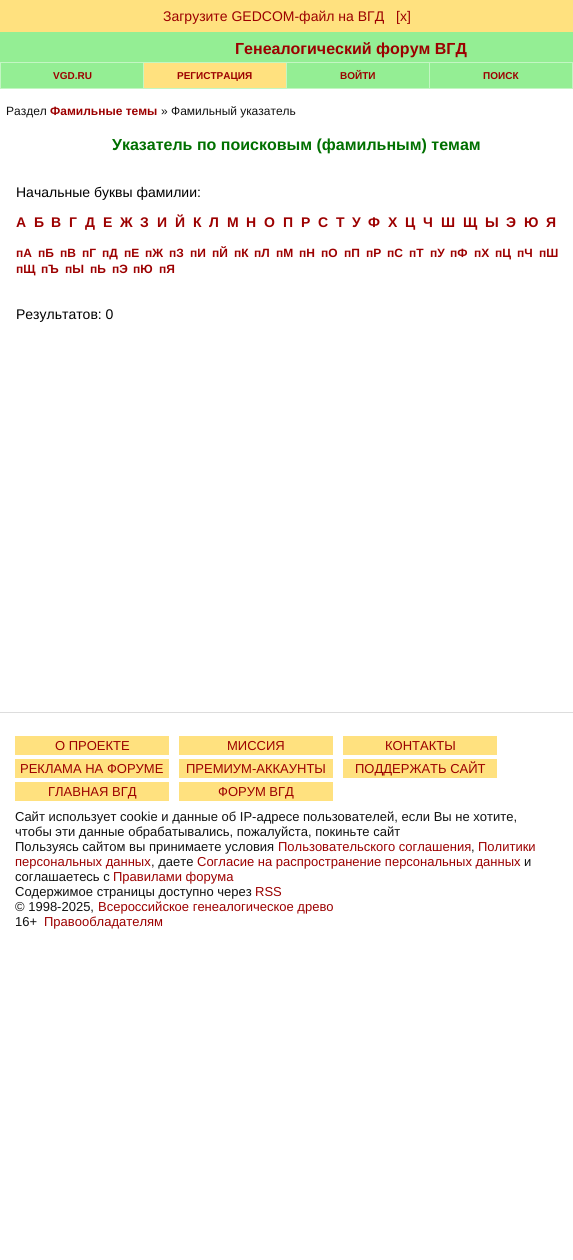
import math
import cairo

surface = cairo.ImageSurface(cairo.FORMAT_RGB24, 573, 1260)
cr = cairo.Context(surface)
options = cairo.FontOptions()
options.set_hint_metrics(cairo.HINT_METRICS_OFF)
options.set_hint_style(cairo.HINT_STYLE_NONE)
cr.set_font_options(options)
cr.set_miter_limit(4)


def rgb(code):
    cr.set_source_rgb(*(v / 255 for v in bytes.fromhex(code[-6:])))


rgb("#ffffff")
cr.paint()
for x, y, w, h, color in [
    (0, 0, 573, 32, "#ffe17f"),
    (0, 32, 573, 30, "#94ee94"),
    (0, 62, 573, 27, "#c3f6c3"),
    (1, 63, 142, 25, "#94ee94"),
    (144, 63, 142, 25, "#ffe17f"),
    (287, 63, 142, 25, "#94ee94"),
    (430, 63, 142, 25, "#94ee94"),
    (0, 712, 573, 1, "#dddddd"),
    (15, 736, 154, 19, "#ffe17f"),
    (179, 736, 154, 19, "#ffe17f"),
    (343, 736, 154, 19, "#ffe17f"),
    (15, 759, 154, 19, "#ffe17f"),
    (179, 759, 154, 19, "#ffe17f"),
    (343, 759, 154, 19, "#ffe17f"),
    (15, 782, 154, 19, "#ffe17f"),
    (179, 782, 154, 19, "#ffe17f"),
]:
    rgb(color)
    cr.rectangle(x, y, w, h)
    cr.fill()
cr.select_font_face("Liberation Sans")
cr.set_font_size(14)
rgb("#9c0000")
cr.move_to(163, 21)
cr.show_text("Загрузите GEDCOM-файл на ВГД")
cr.move_to(396, 21)
cr.show_text("[х]")
cr.select_font_face("Liberation Sans", cairo.FONT_SLANT_NORMAL, cairo.FONT_WEIGHT_BOLD)
cr.set_font_size(16)
cr.move_to(235, 54)
cr.show_text("Генеалогический форум ВГД")
cr.set_font_size(10)
for x, y, s in [
    (53, 79, "VGD.RU"),
    (177, 79, "РЕГИСТРАЦИЯ"),
    (340, 79, "ВОЙТИ"),
    (483, 79, "ПОИСК"),
]:
    cr.move_to(x, y)
    cr.show_text(s)
cr.select_font_face("Liberation Sans")
cr.set_font_size(12)
rgb("#111111")
cr.move_to(6, 115)
cr.show_text("Раздел")
cr.select_font_face("Liberation Sans", cairo.FONT_SLANT_NORMAL, cairo.FONT_WEIGHT_BOLD)
rgb("#9c0000")
cr.move_to(50, 115)
cr.show_text("Фамильные темы")
cr.select_font_face("Liberation Sans")
rgb("#111111")
cr.move_to(161, 115)
cr.show_text("» Фамильный указатель")
cr.select_font_face("Liberation Sans", cairo.FONT_SLANT_NORMAL, cairo.FONT_WEIGHT_BOLD)
cr.set_font_size(16)
rgb("#007000")
cr.move_to(112, 150)
cr.show_text("Указатель по поисковым (фамильным) темам")
cr.select_font_face("Liberation Sans")
cr.set_font_size(14)
rgb("#000000")
cr.move_to(16, 197)
cr.show_text("Начальные буквы фамилии:")
cr.select_font_face("Liberation Sans", cairo.FONT_SLANT_NORMAL, cairo.FONT_WEIGHT_BOLD)
rgb("#9c0000")
for x, y, s in [
    (16, 227, "А"),
    (34, 227, "Б"),
    (51, 227, "В"),
    (69, 227, "Г"),
    (85, 227, "Д"),
    (103, 227, "Е"),
    (120, 227, "Ж"),
    (140, 227, "З"),
    (157, 227, "И"),
    (175, 227, "Й"),
    (193, 227, "К"),
    (209, 227, "Л"),
    (227, 227, "М"),
    (246, 227, "Н"),
    (264, 227, "О"),
    (283, 227, "П"),
    (301, 227, "Р"),
    (318, 227, "С"),
    (336, 227, "Т"),
    (352, 227, "У"),
    (368, 227, "Ф"),
    (388, 227, "Х"),
    (405, 227, "Ц"),
    (423, 227, "Ч"),
    (441, 227, "Ш"),
    (463, 227, "Щ"),
    (485, 227, "Ы"),
    (506, 227, "Э"),
    (524, 227, "Ю"),
    (546, 227, "Я"),
]:
    cr.move_to(x, y)
    cr.show_text(s)
cr.set_font_size(12)
for x, y, s in [
    (16, 257, "пА"),
    (38, 257, "пБ"),
    (60, 257, "пВ"),
    (82, 257, "пГ"),
    (102, 257, "пД"),
    (124, 257, "пЕ"),
    (145, 257, "пЖ"),
    (169, 257, "пЗ"),
    (190, 257, "пИ"),
    (212, 257, "пЙ"),
    (234, 257, "пК"),
    (254, 257, "пЛ"),
    (276, 257, "пМ"),
    (299, 257, "пН"),
    (321, 257, "пО"),
    (344, 257, "пП"),
    (366, 257, "пР"),
    (387, 257, "пС"),
    (409, 257, "пТ"),
    (430, 257, "пУ"),
    (450, 257, "пФ"),
    (474, 257, "пХ"),
    (495, 257, "пЦ"),
    (517, 257, "пЧ"),
    (539, 257, "пШ"),
    (16, 273, "пЩ"),
    (41, 273, "пЪ"),
    (65, 273, "пЫ"),
    (90, 273, "пЬ"),
    (112, 273, "пЭ"),
    (133, 273, "пЮ"),
    (159, 273, "пЯ"),
]:
    cr.move_to(x, y)
    cr.show_text(s)
cr.select_font_face("Liberation Sans")
cr.set_font_size(14)
rgb("#000000")
cr.move_to(16, 319)
cr.show_text("Результатов: 0")
cr.set_font_size(13)
rgb("#9c0000")
for x, y, s in [
    (55, 750, "О ПРОЕКТЕ"),
    (227, 750, "МИССИЯ"),
    (385, 750, "КОНТАКТЫ"),
    (20, 773, "РЕКЛАМА НА ФОРУМЕ"),
    (186, 773, "ПРЕМИУМ-АККАУНТЫ"),
    (355, 773, "ПОДДЕРЖАТЬ САЙТ"),
    (48, 796, "ГЛАВНАЯ ВГД"),
    (218, 796, "ФОРУМ ВГД"),
]:
    cr.move_to(x, y)
    cr.show_text(s)
rgb("#111111")
for x, y, s in [
    (15, 821, "Сайт использует cookie и данные об IP-адресе пользователей, если Вы не хотите,"),
    (15, 836, "чтобы эти данные обрабатывались, пожалуйста, покиньте сайт"),
    (15, 851, "Пользуясь сайтом вы принимаете условия"),
]:
    cr.move_to(x, y)
    cr.show_text(s)
rgb("#9c0000")
cr.move_to(278, 851)
cr.show_text("Пользовательского соглашения")
rgb("#111111")
cr.move_to(471, 851)
cr.show_text(",")
rgb("#9c0000")
cr.move_to(478, 851)
cr.show_text("Политики")
cr.move_to(15, 866)
cr.show_text("персональных данных")
rgb("#111111")
cr.move_to(151, 866)
cr.show_text(", даете")
rgb("#9c0000")
cr.move_to(197, 866)
cr.show_text("Согласие на распространение персональных данных")
rgb("#111111")
cr.move_to(524, 866)
cr.show_text("и")
cr.move_to(15, 881)
cr.show_text("соглашаетесь с")
rgb("#9c0000")
cr.move_to(113, 881)
cr.show_text("Правилами форума")
rgb("#111111")
cr.move_to(15, 896)
cr.show_text("Содержимое страницы доступно через")
rgb("#9c0000")
cr.move_to(255, 896)
cr.show_text("RSS")
rgb("#111111")
cr.move_to(15, 911)
cr.show_text("© 1998-2025,")
rgb("#9c0000")
cr.move_to(98, 911)
cr.show_text("Всероссийское генеалогическое древо")
rgb("#111111")
cr.move_to(15, 926)
cr.show_text("16+")
rgb("#9c0000")
cr.move_to(44, 926)
cr.show_text("Правообладателям")
surface.write_to_png("page.png")
